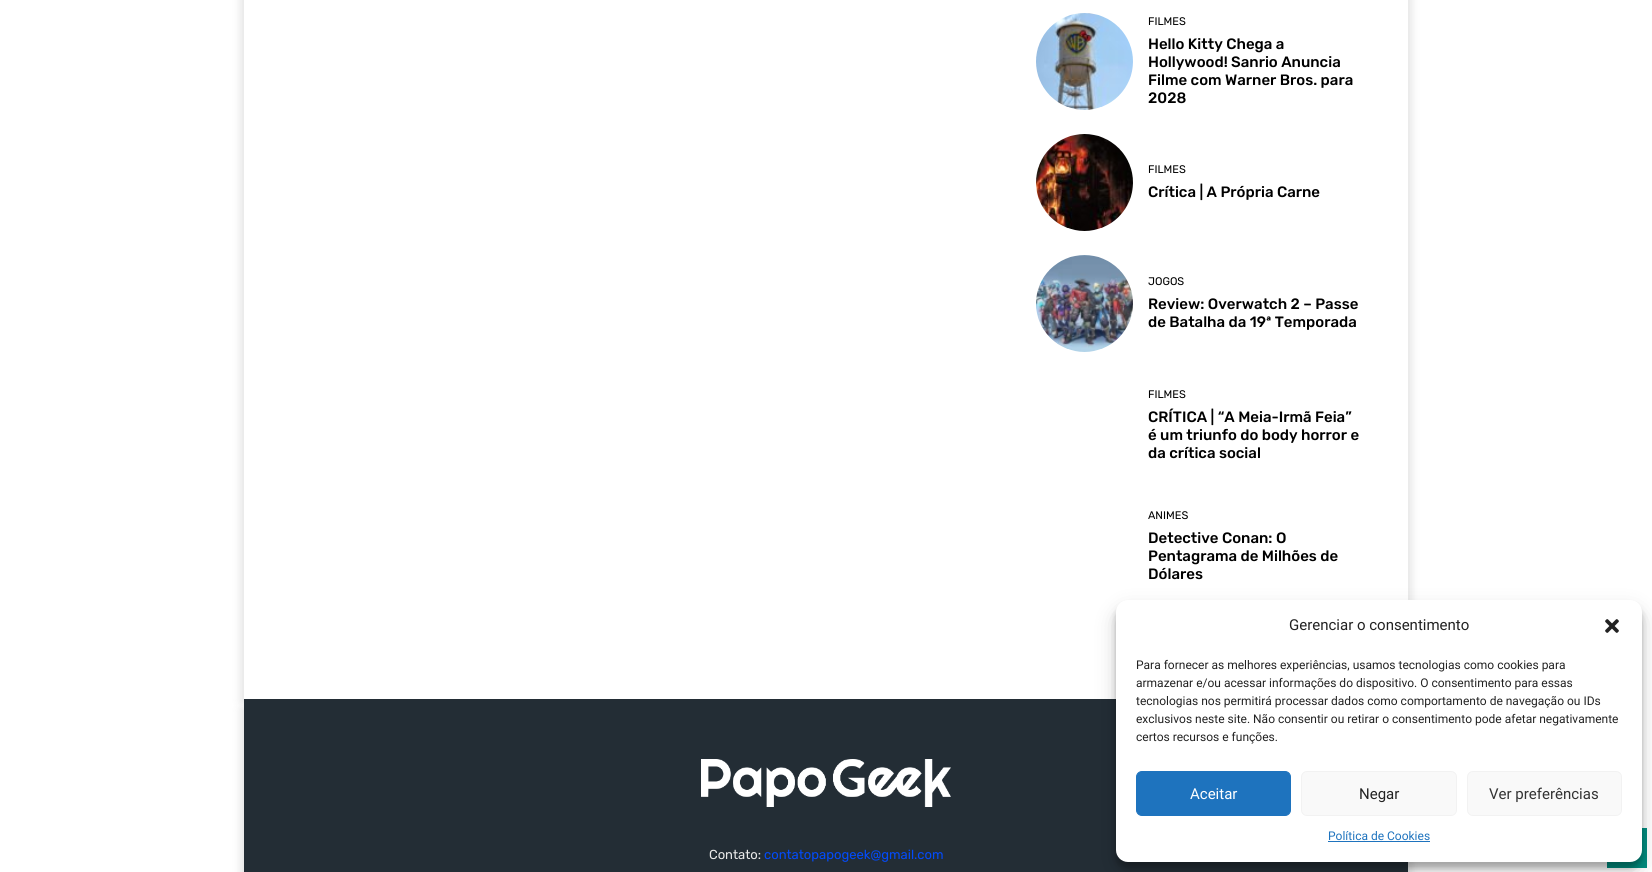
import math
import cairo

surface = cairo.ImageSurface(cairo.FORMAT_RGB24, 1652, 872)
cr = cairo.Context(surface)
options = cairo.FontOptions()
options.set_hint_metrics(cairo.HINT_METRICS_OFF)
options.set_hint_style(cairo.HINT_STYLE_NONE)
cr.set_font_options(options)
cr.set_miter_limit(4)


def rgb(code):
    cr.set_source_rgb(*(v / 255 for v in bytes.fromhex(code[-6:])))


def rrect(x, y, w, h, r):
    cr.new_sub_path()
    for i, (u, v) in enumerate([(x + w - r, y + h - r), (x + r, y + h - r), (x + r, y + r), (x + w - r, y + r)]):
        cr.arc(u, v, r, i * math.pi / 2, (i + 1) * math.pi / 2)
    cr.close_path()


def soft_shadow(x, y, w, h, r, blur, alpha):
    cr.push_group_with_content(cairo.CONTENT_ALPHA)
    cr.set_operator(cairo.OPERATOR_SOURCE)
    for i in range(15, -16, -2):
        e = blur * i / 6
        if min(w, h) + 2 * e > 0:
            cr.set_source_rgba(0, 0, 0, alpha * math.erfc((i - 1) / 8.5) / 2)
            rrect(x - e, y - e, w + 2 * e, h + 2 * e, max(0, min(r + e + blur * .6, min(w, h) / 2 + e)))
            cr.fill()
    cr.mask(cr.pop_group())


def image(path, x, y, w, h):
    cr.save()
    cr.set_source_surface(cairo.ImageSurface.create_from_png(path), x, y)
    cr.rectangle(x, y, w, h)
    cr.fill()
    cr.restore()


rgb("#ffffff")
cr.paint()
cr.save()
cr.set_fill_rule(cairo.FILL_RULE_EVEN_ODD)
cr.new_path()
cr.move_to(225, 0)
cr.line_to(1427, 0)
cr.line_to(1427, 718)
cr.line_to(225, 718)
cr.close_path()
cr.move_to(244, -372)
cr.line_to(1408, -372)
cr.line_to(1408, 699)
cr.line_to(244, 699)
cr.close_path()
cr.clip()
rgb("#000000")
soft_shadow(241, -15, 1170, 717, 0, 5, 0.12)
cr.restore()
image("img/1.png", 1036, 13, 97, 97)
image("img/2.png", 1036, 134, 97, 97)
image("img/3.png", 1036, 255, 97, 97)
rgb("#000000")
soft_shadow(241, 709, 1170, 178, 0, 5, 0.12)
rgb("#232d35")
cr.rectangle(244, 699, 1164, 173)
cr.fill()
image("img/4.png", 701, 759, 250, 48)
rgb("#008d7f")
cr.rectangle(1607, 828, 40, 40)
cr.fill()
rgb("#000000")
soft_shadow(1116, 606, 526, 262, 12, 3, 0.23)
soft_shadow(1116, 610, 526, 262, 12, 10, 0.19)
rgb("#ffffff")
rrect(1116, 600, 526, 262, 12)
cr.fill()
image("img/5.png", 1605, 619, 14, 14)
rgb("#1e73be")
rrect(1136.5, 771.5, 154, 44, 5.5)
cr.fill_preserve()
cr.set_line_width(1)
cr.stroke()
rgb("#f9f9f9")
rrect(1301.5, 771.5, 155, 44, 5.5)
cr.fill_preserve()
rgb("#f2f2f2")
cr.stroke()
rgb("#f9f9f9")
rrect(1467.5, 771.5, 154, 44, 5.5)
cr.fill_preserve()
rgb("#f2f2f2")
cr.stroke()
rgb("#1e73be")
cr.rectangle(1328, 841, 102, 1)
cr.fill()
cr.select_font_face("Rubik")
cr.set_font_size(11)
rgb("#000000")
cr.move_to(1148, 25)
cr.show_text("FILMES")
cr.select_font_face("Rubik Medium")
cr.set_font_size(15)
for x, y, s in [
    (1148, 49, "Hello Kitty Chega a"),
    (1148, 67, "Hollywood! Sanrio Anuncia"),
    (1148, 85, "Filme com Warner Bros. para"),
    (1148, 103, "2028"),
]:
    cr.move_to(x, y)
    cr.show_text(s)
cr.select_font_face("Rubik")
cr.set_font_size(11)
cr.move_to(1148, 173)
cr.show_text("FILMES")
cr.select_font_face("Rubik Medium")
cr.set_font_size(15)
cr.move_to(1148, 197)
cr.show_text("Crítica | A Própria Carne")
cr.select_font_face("Rubik")
cr.set_font_size(11)
cr.move_to(1148, 285)
cr.show_text("JOGOS")
cr.select_font_face("Rubik Medium")
cr.set_font_size(15)
cr.move_to(1148, 309)
cr.show_text("Review: Overwatch 2 – Passe")
cr.move_to(1148, 327)
cr.show_text("de Batalha da 19ª Temporada")
cr.select_font_face("Rubik")
cr.set_font_size(11)
cr.move_to(1148, 398)
cr.show_text("FILMES")
cr.select_font_face("Rubik Medium")
cr.set_font_size(15)
for x, y, s in [
    (1148, 422, "CRÍTICA | “A Meia-Irmã Feia”"),
    (1148, 440, "é um triunfo do body horror e"),
    (1148, 458, "da crítica social"),
]:
    cr.move_to(x, y)
    cr.show_text(s)
cr.select_font_face("Rubik")
cr.set_font_size(11)
cr.move_to(1148, 519)
cr.show_text("ANIMES")
cr.select_font_face("Rubik Medium")
cr.set_font_size(15)
for x, y, s in [
    (1148, 543, "Detective Conan: O"),
    (1148, 561, "Pentagrama de Milhões de"),
    (1148, 579, "Dólares"),
]:
    cr.move_to(x, y)
    cr.show_text(s)
cr.select_font_face("Rubik")
cr.set_font_size(13)
rgb("#eaeaea")
cr.move_to(709, 859)
cr.show_text("Contato:")
rgb("#024bfb")
cr.move_to(764, 859)
cr.show_text("contatopapogeek@gmail.com")
cr.select_font_face("Roboto")
cr.set_font_size(15)
rgb("#222222")
cr.move_to(1289, 630)
cr.show_text("Gerenciar o consentimento")
cr.set_font_size(12)
for x, y, s in [
    (1136, 669, "Para fornecer as melhores experiências, usamos tecnologias como cookies para"),
    (1136, 687, "armazenar e/ou acessar informações do dispositivo. O consentimento para essas"),
    (1136, 705, "tecnologias nos permitirá processar dados como comportamento de navegação ou IDs"),
    (1136, 723, "exclusivos neste site. Não consentir ou retirar o consentimento pode afetar negativamente"),
    (1136, 741, "certos recursos e funções."),
]:
    cr.move_to(x, y)
    cr.show_text(s)
cr.set_font_size(15)
rgb("#ffffff")
cr.move_to(1190, 799)
cr.show_text("Aceitar")
rgb("#222222")
cr.move_to(1359, 799)
cr.show_text("Negar")
rgb("#333333")
cr.move_to(1489, 799)
cr.show_text("Ver preferências")
cr.set_font_size(12)
rgb("#1e73be")
cr.move_to(1328, 840)
cr.show_text("Política de Cookies")
surface.write_to_png("page.png")
